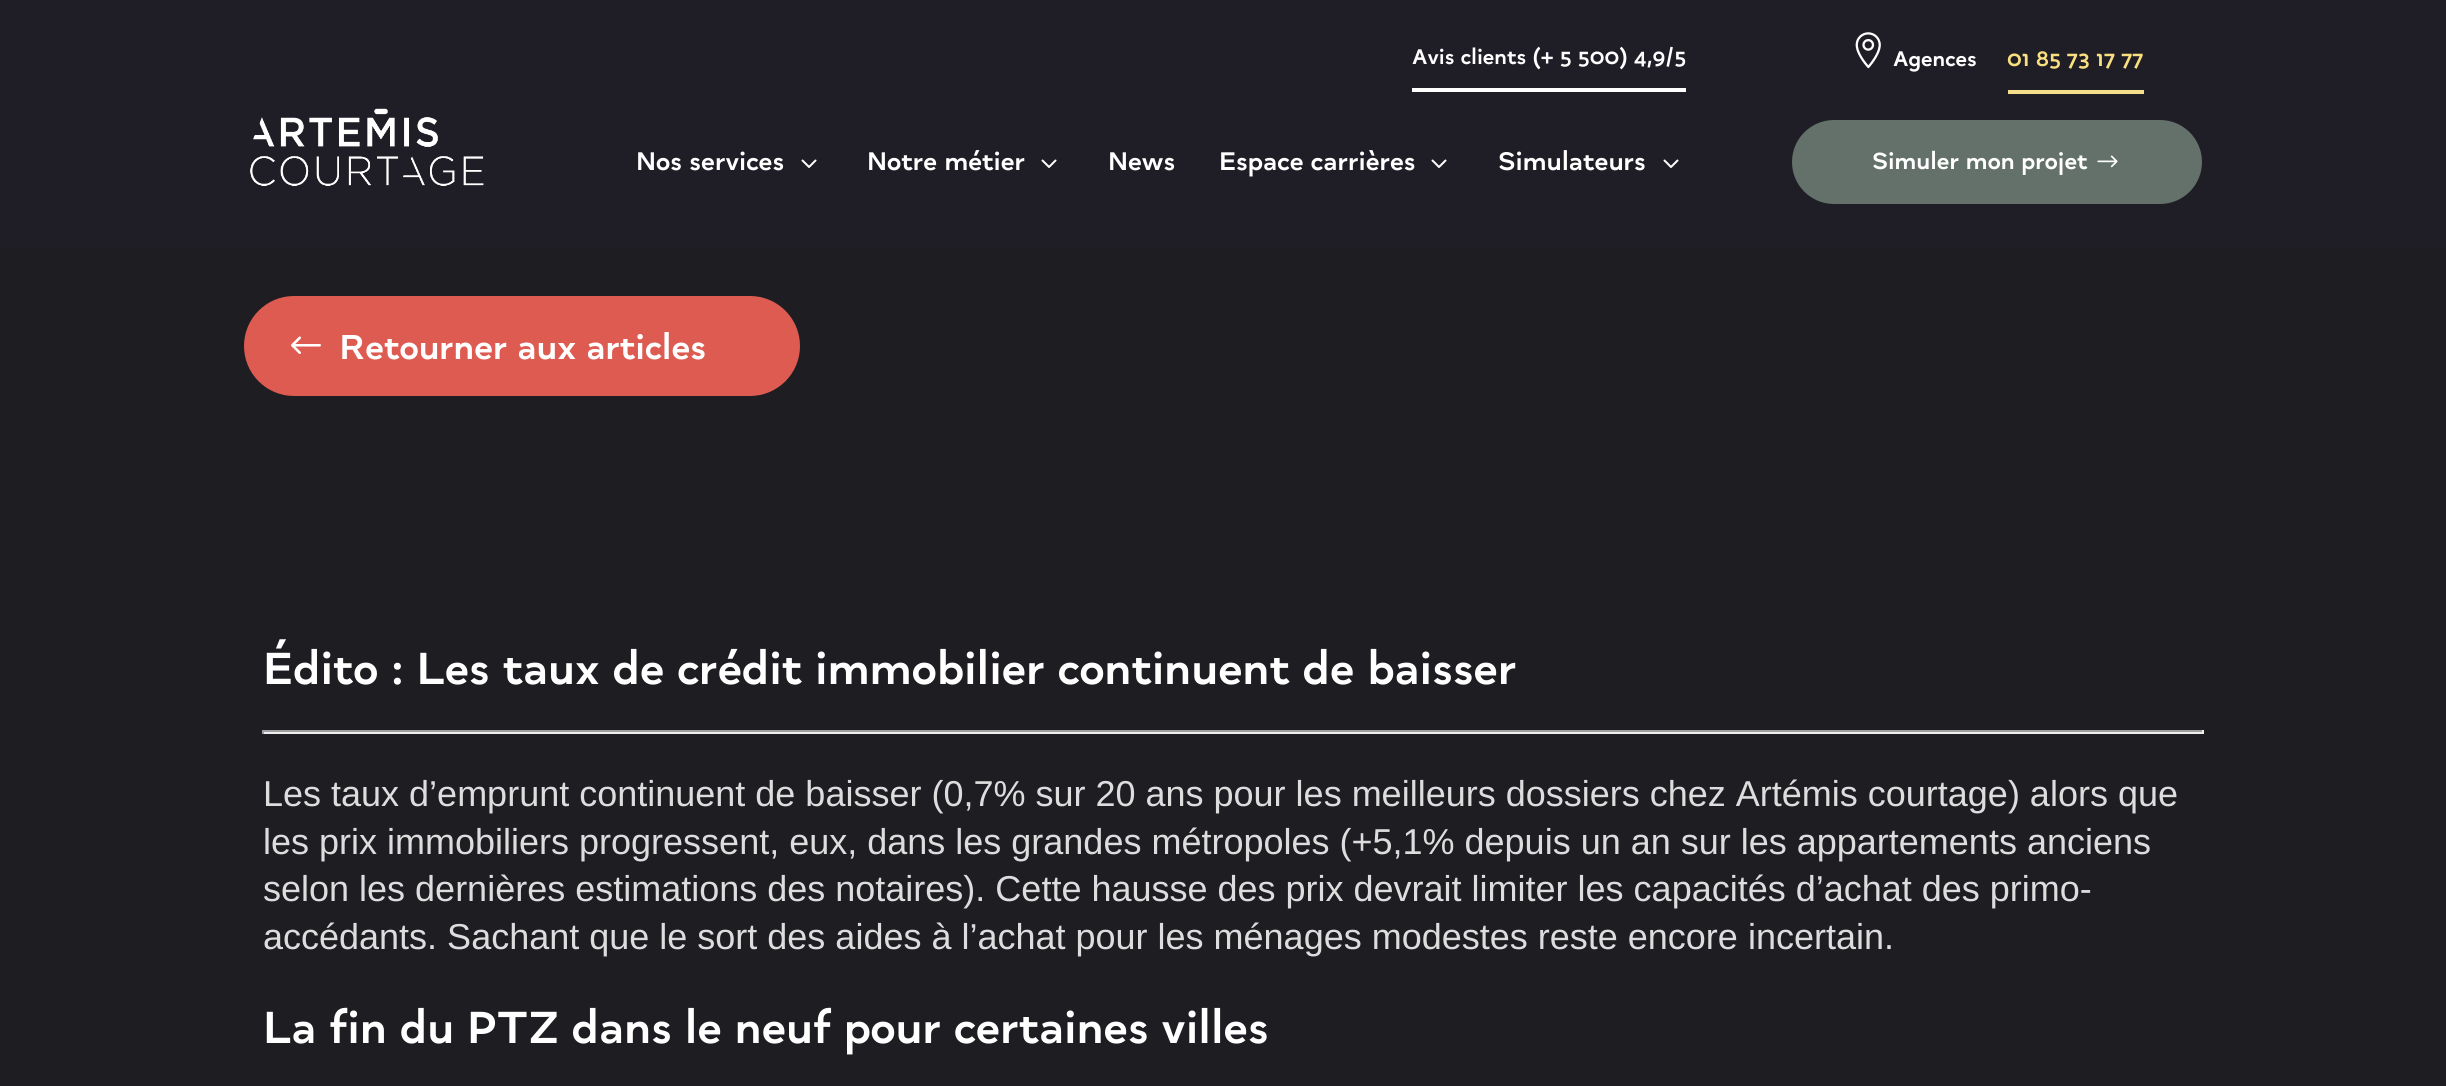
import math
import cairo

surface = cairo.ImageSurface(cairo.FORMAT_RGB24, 2446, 1086)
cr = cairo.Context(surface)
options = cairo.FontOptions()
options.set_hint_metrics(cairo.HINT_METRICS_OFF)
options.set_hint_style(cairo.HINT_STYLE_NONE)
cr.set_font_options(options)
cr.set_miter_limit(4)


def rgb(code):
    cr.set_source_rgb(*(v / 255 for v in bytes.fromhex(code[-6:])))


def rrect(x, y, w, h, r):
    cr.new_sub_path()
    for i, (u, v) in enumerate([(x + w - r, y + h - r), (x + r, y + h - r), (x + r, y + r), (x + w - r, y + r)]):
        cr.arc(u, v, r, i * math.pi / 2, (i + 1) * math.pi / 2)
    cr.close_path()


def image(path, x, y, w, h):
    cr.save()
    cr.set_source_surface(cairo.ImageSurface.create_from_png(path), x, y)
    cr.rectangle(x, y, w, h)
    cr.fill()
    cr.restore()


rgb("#1f1d25")
cr.paint()
rgb("#ffffff")
cr.rectangle(1412, 88, 274, 4)
cr.fill()
image("img/1.png", 1855, 32, 26, 37)
rgb("#f5df8b")
cr.rectangle(2008, 90, 136, 4)
cr.fill()
image("img/2.png", 250, 108, 234, 79)
image("img/3.png", 801, 159, 16, 9)
image("img/3.png", 1041, 159, 16, 9)
image("img/3.png", 1431, 159, 16, 9)
image("img/3.png", 1663, 159, 16, 9)
rgb("#63716a")
rrect(1792, 120, 410, 84, 42)
cr.fill()
image("img/4.png", 2097, 155, 21, 13)
rgb("#1d1d22")
cr.rectangle(0, 248, 2446, 838)
cr.fill()
rgb("#de5b52")
rrect(246, 298, 552, 96, 48)
cr.fill_preserve()
cr.set_line_width(4)
cr.stroke()
image("img/5.png", 291, 336, 30, 18)
for x, y, w, h, color in [
    (262, 730, 1942, 2, "#9f9f9f"),
    (2202, 730, 2, 4, "#eeeeee"),
    (262, 732, 1942, 2, "#eeeeee"),
    (262, 730, 2, 4, "#9f9f9f"),
]:
    rgb(color)
    cr.rectangle(x, y, w, h)
    cr.fill()
cr.select_font_face("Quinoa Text", cairo.FONT_SLANT_NORMAL, cairo.FONT_WEIGHT_BOLD)
cr.set_font_size(24.5)
rgb("#ffffff")
cr.move_to(1412, 64)
cr.show_text("Avis clients (+ 5 500) 4,9/5")
cr.move_to(1893, 66)
cr.show_text("Agences")
rgb("#f9df7e")
cr.move_to(2007, 66)
cr.show_text("01 85 73 17 77")
cr.set_font_size(29.5)
rgb("#ffffff")
for x, y, s in [
    (636, 170, "Nos services"),
    (867, 170, "Notre métier"),
    (1108, 170, "News"),
    (1219, 170, "Espace carrières"),
    (1498, 170, "Simulateurs"),
]:
    cr.move_to(x, y)
    cr.show_text(s)
cr.set_font_size(27)
cr.move_to(1872, 169)
cr.show_text("Simuler mon projet")
cr.set_font_size(40)
cr.move_to(339, 359)
cr.show_text("Retourner aux articles")
cr.set_font_size(52)
cr.move_to(263, 684)
cr.show_text("Édito : Les taux de crédit immobilier continuent de baisser")
cr.select_font_face("Liberation Sans")
cr.set_font_size(36)
rgb("#dddddd")
for x, y, s in [
    (263, 806, "Les taux d’emprunt continuent de baisser (0,7% sur 20 ans pour les meilleurs dossiers chez Artémis courtage) alors que"),
    (263, 854, "les prix immobiliers progressent, eux, dans les grandes métropoles (+5,1% depuis un an sur les appartements anciens"),
    (263, 901, "selon les dernières estimations des notaires). Cette hausse des prix devrait limiter les capacités d’achat des primo-"),
    (263, 949, "accédants. Sachant que le sort des aides à l’achat pour les ménages modestes reste encore incertain."),
]:
    cr.move_to(x, y)
    cr.show_text(s)
cr.select_font_face("Quinoa Text", cairo.FONT_SLANT_NORMAL, cairo.FONT_WEIGHT_BOLD)
cr.set_font_size(52)
rgb("#ffffff")
cr.move_to(263, 1043)
cr.show_text("La fin du PTZ dans le neuf pour certaines villes")
surface.write_to_png("page.png")
